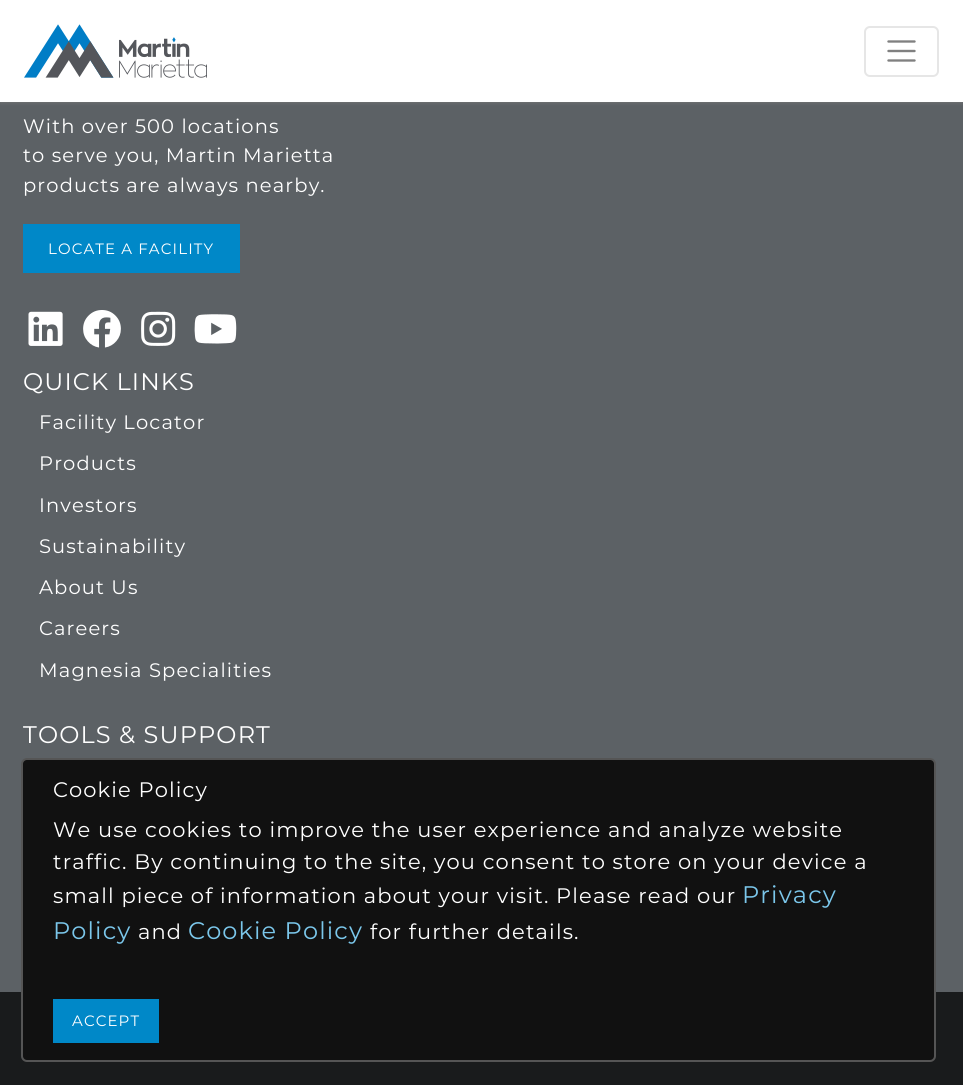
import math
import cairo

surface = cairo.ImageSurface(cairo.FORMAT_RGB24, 963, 1085)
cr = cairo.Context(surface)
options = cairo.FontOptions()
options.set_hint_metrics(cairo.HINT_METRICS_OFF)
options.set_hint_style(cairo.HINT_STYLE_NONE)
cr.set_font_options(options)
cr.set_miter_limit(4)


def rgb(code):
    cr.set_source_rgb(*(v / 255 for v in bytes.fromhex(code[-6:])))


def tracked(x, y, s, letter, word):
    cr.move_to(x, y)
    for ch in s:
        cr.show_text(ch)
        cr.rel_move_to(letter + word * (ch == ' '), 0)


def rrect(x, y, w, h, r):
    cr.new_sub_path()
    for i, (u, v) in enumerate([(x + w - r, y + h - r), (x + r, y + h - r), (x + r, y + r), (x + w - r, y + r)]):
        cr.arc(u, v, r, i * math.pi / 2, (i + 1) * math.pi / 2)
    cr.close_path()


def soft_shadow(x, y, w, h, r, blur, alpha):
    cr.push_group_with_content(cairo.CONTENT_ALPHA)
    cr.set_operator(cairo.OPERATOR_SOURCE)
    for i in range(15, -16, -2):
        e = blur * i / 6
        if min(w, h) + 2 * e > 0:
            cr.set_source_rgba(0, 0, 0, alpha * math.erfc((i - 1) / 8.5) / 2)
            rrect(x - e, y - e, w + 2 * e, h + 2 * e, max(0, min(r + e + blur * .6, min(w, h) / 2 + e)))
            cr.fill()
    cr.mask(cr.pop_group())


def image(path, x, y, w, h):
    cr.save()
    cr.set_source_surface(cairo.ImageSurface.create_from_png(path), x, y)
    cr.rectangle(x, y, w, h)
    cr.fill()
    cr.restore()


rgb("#191b1c")
cr.paint()
rgb("#5c6165")
cr.rectangle(0, 102, 963, 890)
cr.fill()
rgb("#7b7b7b")
soft_shadow(0, 0, 963, 102, 0, 2, 1)
rgb("#ffffff")
cr.rectangle(0, 0, 963, 102)
cr.fill()
image("img/1.png", 24, 24, 183, 54)
rrect(865, 27, 73, 49, 5)
rgb("#e6e6e6")
cr.stroke()
cr.new_path()
cr.move_to(888.5, 41.5)
cr.line_to(914.5, 41.5)
cr.move_to(888.5, 51)
cr.line_to(914.5, 51)
cr.move_to(888.5, 60.5)
cr.line_to(914.5, 60.5)
rgb("#808080")
cr.set_line_width(2.4)
cr.set_line_cap(cairo.LINE_CAP_ROUND)
cr.stroke()
rgb("#0088c8")
cr.rectangle(23, 224, 217, 49)
cr.fill()
image("img/2.png", 28, 311, 35, 35)
image("img/3.png", 83, 310, 38, 38)
image("img/4.png", 141, 311, 35, 35)
image("img/5.png", 194, 314, 43, 30)
rgb("#111111")
rrect(22, 759, 913, 302, 5)
cr.fill_preserve()
rgb("#555555")
cr.set_line_width(2)
cr.set_line_cap(cairo.LINE_CAP_BUTT)
cr.stroke()
rgb("#0088c8")
cr.rectangle(53, 999, 106, 44)
cr.fill()
cr.select_font_face("Montserrat")
cr.set_font_size(19.5)
rgb("#ffffff")
for x, y, s in [
    (23, 133, "With over 500 locations"),
    (23, 162, "to serve you, Martin Marietta"),
    (23, 192, "products are always nearby."),
]:
    tracked(x, y, s, 1.13, 0)
cr.set_font_size(15)
tracked(48, 254, "LOCATE A FACILITY", 1.13, 0)
cr.set_font_size(24)
tracked(23, 390, "QUICK LINKS", 1.13, 0)
cr.set_font_size(19.5)
for x, y, s in [
    (39, 429, "Facility Locator"),
    (39, 470, "Products"),
    (39, 512, "Investors"),
    (39, 553, "Sustainability"),
    (39, 594, "About Us"),
    (39, 635, "Careers"),
    (39, 677, "Magnesia Specialities"),
]:
    tracked(x, y, s, 1.13, 0)
cr.set_font_size(24)
tracked(23, 743, "TOOLS & SUPPORT", 1.13, 0)
cr.set_font_size(21)
for x, y, s in [
    (53, 797, "Cookie Policy"),
    (53, 837, "We use cookies to improve the user experience and analyze website"),
    (53, 869, "traffic. By continuing to the site, you consent to store on your device a"),
    (53, 903, "small piece of information about your visit. Please read our"),
]:
    tracked(x, y, s, 1.13, 0)
cr.set_font_size(24)
rgb("#7bc7eb")
tracked(742, 903, "Privacy", 1.13, 0)
tracked(53, 939, "Policy", 1.13, 0)
cr.set_font_size(21)
rgb("#ffffff")
tracked(138, 939, "and", 1.13, 0)
cr.set_font_size(24)
rgb("#7bc7eb")
tracked(188, 939, "Cookie Policy", 1.13, 0)
cr.set_font_size(21)
rgb("#ffffff")
tracked(370, 939, "for further details.", 1.13, 0)
cr.set_font_size(15)
tracked(72, 1026, "ACCEPT", 1.13, 0)
surface.write_to_png("page.png")
